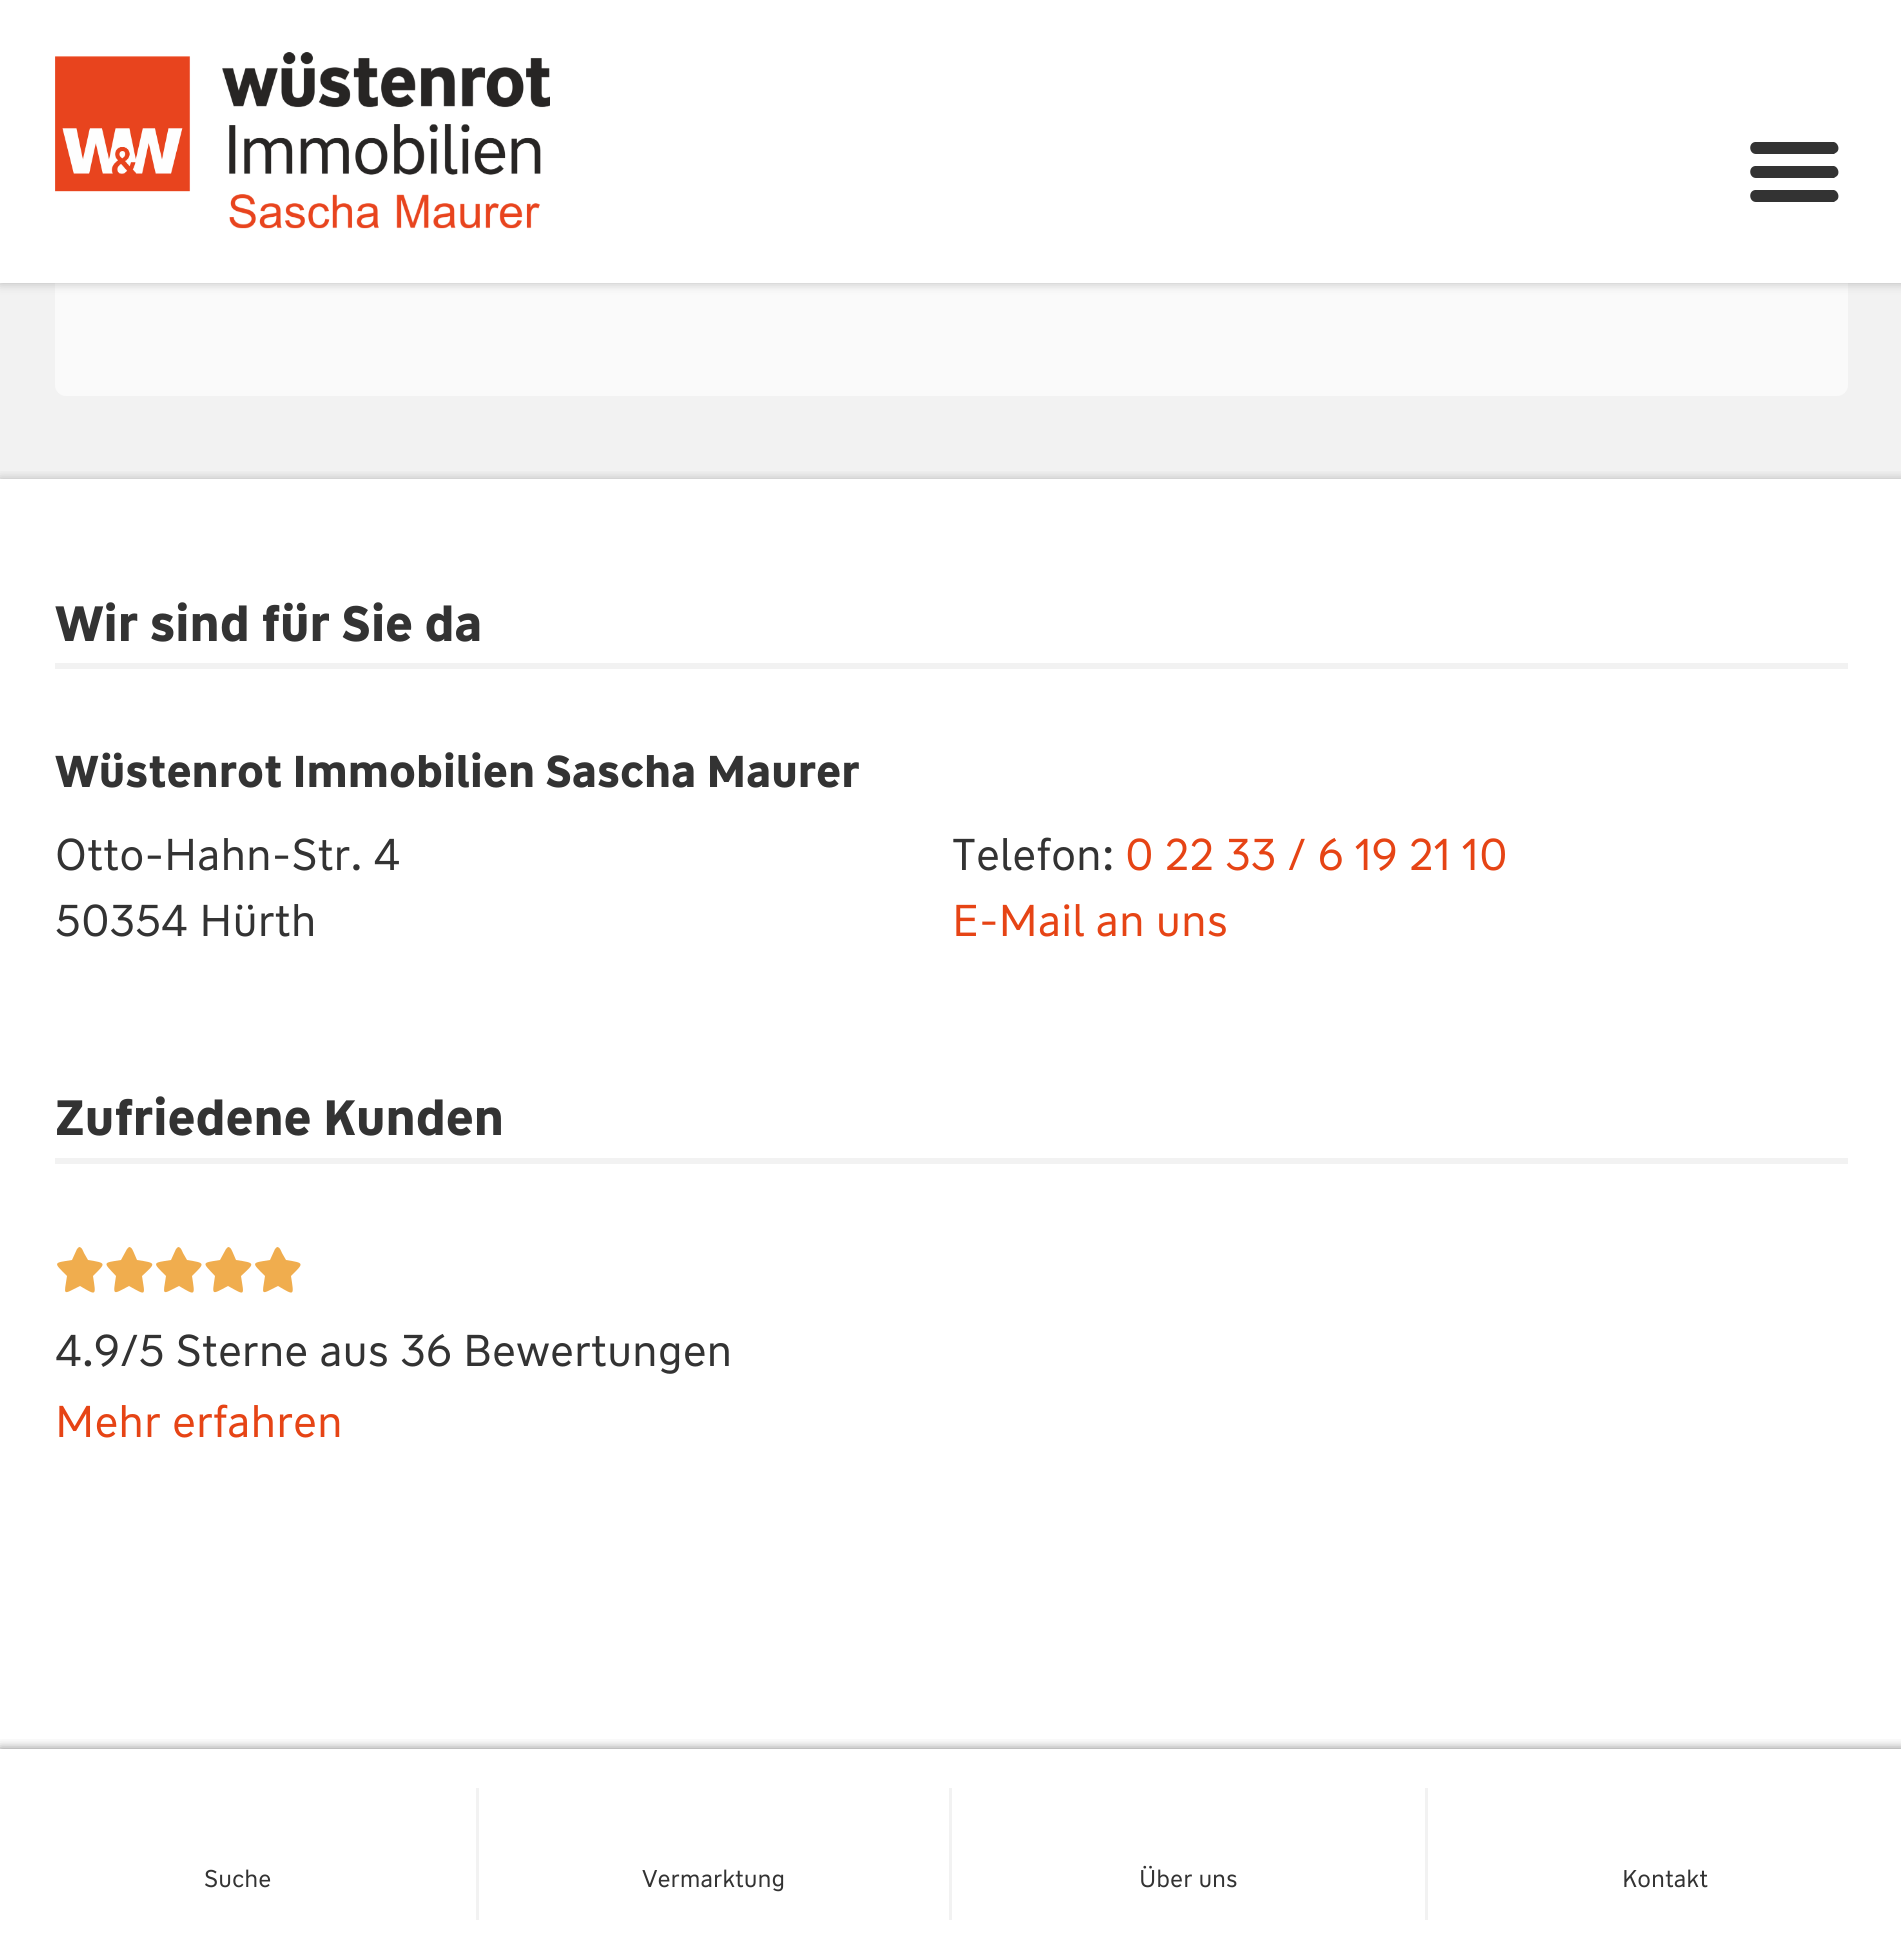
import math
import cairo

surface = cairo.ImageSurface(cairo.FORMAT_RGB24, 1901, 1946)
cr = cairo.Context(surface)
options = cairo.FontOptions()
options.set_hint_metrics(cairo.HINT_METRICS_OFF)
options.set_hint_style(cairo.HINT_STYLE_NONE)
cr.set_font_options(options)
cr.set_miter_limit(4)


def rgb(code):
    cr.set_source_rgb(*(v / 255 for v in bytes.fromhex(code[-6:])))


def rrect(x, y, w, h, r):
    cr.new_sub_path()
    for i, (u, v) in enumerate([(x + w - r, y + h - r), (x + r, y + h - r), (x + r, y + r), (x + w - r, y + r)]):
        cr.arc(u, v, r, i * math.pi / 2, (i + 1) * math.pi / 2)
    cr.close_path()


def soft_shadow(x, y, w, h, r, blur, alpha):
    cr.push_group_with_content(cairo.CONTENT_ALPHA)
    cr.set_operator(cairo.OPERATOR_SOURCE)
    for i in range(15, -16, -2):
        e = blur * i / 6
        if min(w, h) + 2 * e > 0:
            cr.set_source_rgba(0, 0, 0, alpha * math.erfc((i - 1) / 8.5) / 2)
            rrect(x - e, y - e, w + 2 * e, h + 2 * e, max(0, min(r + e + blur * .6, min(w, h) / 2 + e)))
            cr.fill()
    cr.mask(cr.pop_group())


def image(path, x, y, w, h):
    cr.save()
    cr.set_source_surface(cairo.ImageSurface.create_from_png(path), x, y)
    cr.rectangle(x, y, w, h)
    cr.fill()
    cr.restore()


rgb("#ffffff")
cr.paint()
rgb("#f2f2f2")
cr.rectangle(0, 283, 1901, 196)
cr.fill()
rgb("#fafafa")
rrect(55, -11, 1793, 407, 11)
cr.fill()
rgb("#000000")
soft_shadow(0, 0, 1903, 283, 0, 5.5, 0.25)
rgb("#ffffff")
cr.rectangle(0, 0, 1901, 283)
cr.fill()
image("img/1.png", 55, 52, 495, 177)
rgb("#333333")
cr.new_path()
cr.move_to(1756, 154)
cr.line_to(1834, 154)
cr.line_to(1837, 152)
cr.curve_to(1840, 149, 1838, 143, 1834, 142)
cr.line_to(1755, 142)
cr.curve_to(1748, 143, 1749, 154, 1756, 154)
cr.close_path()
cr.move_to(1756, 178)
cr.line_to(1834, 178)
cr.line_to(1837, 176)
cr.curve_to(1840, 173, 1838, 167, 1834, 166)
cr.line_to(1755, 166)
cr.curve_to(1748, 167, 1749, 178, 1756, 178)
cr.close_path()
cr.move_to(1756, 202)
cr.line_to(1834, 202)
cr.line_to(1837, 200)
cr.curve_to(1840, 197, 1838, 191, 1834, 190)
cr.line_to(1755, 190)
cr.curve_to(1748, 191, 1749, 202, 1756, 202)
cr.close_path()
cr.fill()
cr.save()
cr.rectangle(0, 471, 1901, 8)
cr.clip()
rgb("#000000")
soft_shadow(0, 479, 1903, 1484, 0, 5.5, 0.25)
cr.restore()
rgb("#f2f2f2")
cr.rectangle(55, 663, 1793, 6)
cr.fill()
cr.rectangle(55, 1158, 1793, 6)
cr.fill()
rgb("#f0ad4e")
cr.new_path()
cr.move_to(77, 1249)
cr.line_to(72, 1260)
cr.curve_to(53, 1263, 53, 1262, 67, 1276)
cr.curve_to(64, 1296, 62, 1295, 80, 1286)
cr.curve_to(97, 1296, 96, 1296, 93, 1276)
cr.curve_to(106, 1263, 107, 1263, 88, 1260)
cr.line_to(84, 1253)
cr.curve_to(83, 1251, 82, 1247, 79, 1247)
cr.close_path()
cr.fill()
cr.new_path()
cr.move_to(127, 1249)
cr.line_to(121, 1260)
cr.curve_to(102, 1263, 103, 1262, 116, 1276)
cr.curve_to(113, 1296, 112, 1295, 129, 1286)
cr.curve_to(147, 1296, 145, 1296, 142, 1276)
cr.curve_to(156, 1263, 157, 1263, 137, 1260)
cr.line_to(134, 1253)
cr.curve_to(133, 1251, 132, 1247, 129, 1247)
cr.close_path()
cr.fill()
cr.new_path()
cr.move_to(176, 1249)
cr.line_to(171, 1260)
cr.curve_to(152, 1263, 152, 1262, 166, 1276)
cr.curve_to(163, 1296, 161, 1295, 179, 1286)
cr.curve_to(196, 1296, 195, 1296, 192, 1276)
cr.curve_to(205, 1263, 206, 1263, 187, 1260)
cr.line_to(183, 1253)
cr.curve_to(182, 1251, 181, 1247, 178, 1247)
cr.close_path()
cr.fill()
cr.new_path()
cr.move_to(226, 1249)
cr.line_to(220, 1260)
cr.curve_to(201, 1263, 202, 1262, 215, 1276)
cr.curve_to(212, 1296, 211, 1295, 228, 1286)
cr.curve_to(246, 1296, 244, 1296, 241, 1276)
cr.curve_to(255, 1263, 256, 1263, 236, 1260)
cr.line_to(233, 1253)
cr.curve_to(232, 1251, 231, 1247, 228, 1247)
cr.close_path()
cr.fill()
cr.new_path()
cr.move_to(275, 1249)
cr.line_to(270, 1260)
cr.curve_to(251, 1263, 251, 1262, 265, 1276)
cr.curve_to(262, 1296, 260, 1295, 278, 1286)
cr.curve_to(295, 1296, 294, 1296, 291, 1276)
cr.curve_to(304, 1263, 305, 1263, 286, 1260)
cr.line_to(282, 1253)
cr.curve_to(281, 1251, 280, 1247, 277, 1247)
cr.close_path()
cr.fill()
cr.save()
cr.rectangle(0, 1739, 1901, 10)
cr.clip()
rgb("#000000")
soft_shadow(0, 1749, 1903, 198, 0, 5.5, 0.5)
cr.restore()
for x, y, w, h, color in [
    (949, 1788, 3, 132, "#f2f2f2"),
    (476, 1788, 3, 132, "#f2f2f2"),
    (1425, 1788, 3, 132, "#f2f2f2"),
]:
    rgb(color)
    cr.rectangle(x, y, w, h)
    cr.fill()
cr.select_font_face("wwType", cairo.FONT_SLANT_NORMAL, cairo.FONT_WEIGHT_BOLD)
cr.set_font_size(49.5)
rgb("#333333")
cr.move_to(55, 641)
cr.show_text("Wir sind für Sie da")
cr.set_font_size(44.5)
cr.move_to(55, 787)
cr.show_text("Wüstenrot Immobilien Sascha Maurer")
cr.select_font_face("wwType")
for x, y, s in [
    (55, 870, "Otto-Hahn-Str. 4"),
    (55, 936, "50354 Hürth"),
    (952, 870, "Telefon:"),
]:
    cr.move_to(x, y)
    cr.show_text(s)
rgb("#e64415")
cr.move_to(1125, 870)
cr.show_text("0 22 33 / 6 19 21 10")
cr.move_to(952, 936)
cr.show_text("E-Mail an uns")
cr.select_font_face("wwType", cairo.FONT_SLANT_NORMAL, cairo.FONT_WEIGHT_BOLD)
cr.set_font_size(49.5)
rgb("#333333")
cr.move_to(55, 1135)
cr.show_text("Zufriedene Kunden")
cr.select_font_face("wwType")
cr.set_font_size(44.5)
cr.move_to(55, 1366)
cr.show_text("4.9/5 Sterne aus 36 Bewertungen")
rgb("#e64415")
cr.move_to(55, 1437)
cr.show_text("Mehr erfahren")
cr.set_font_size(24.25)
rgb("#333333")
for x, y, s in [
    (204, 1887, "Suche"),
    (642, 1887, "Vermarktung"),
    (1139, 1887, "Über uns"),
    (1622, 1887, "Kontakt"),
]:
    cr.move_to(x, y)
    cr.show_text(s)
surface.write_to_png("page.png")
